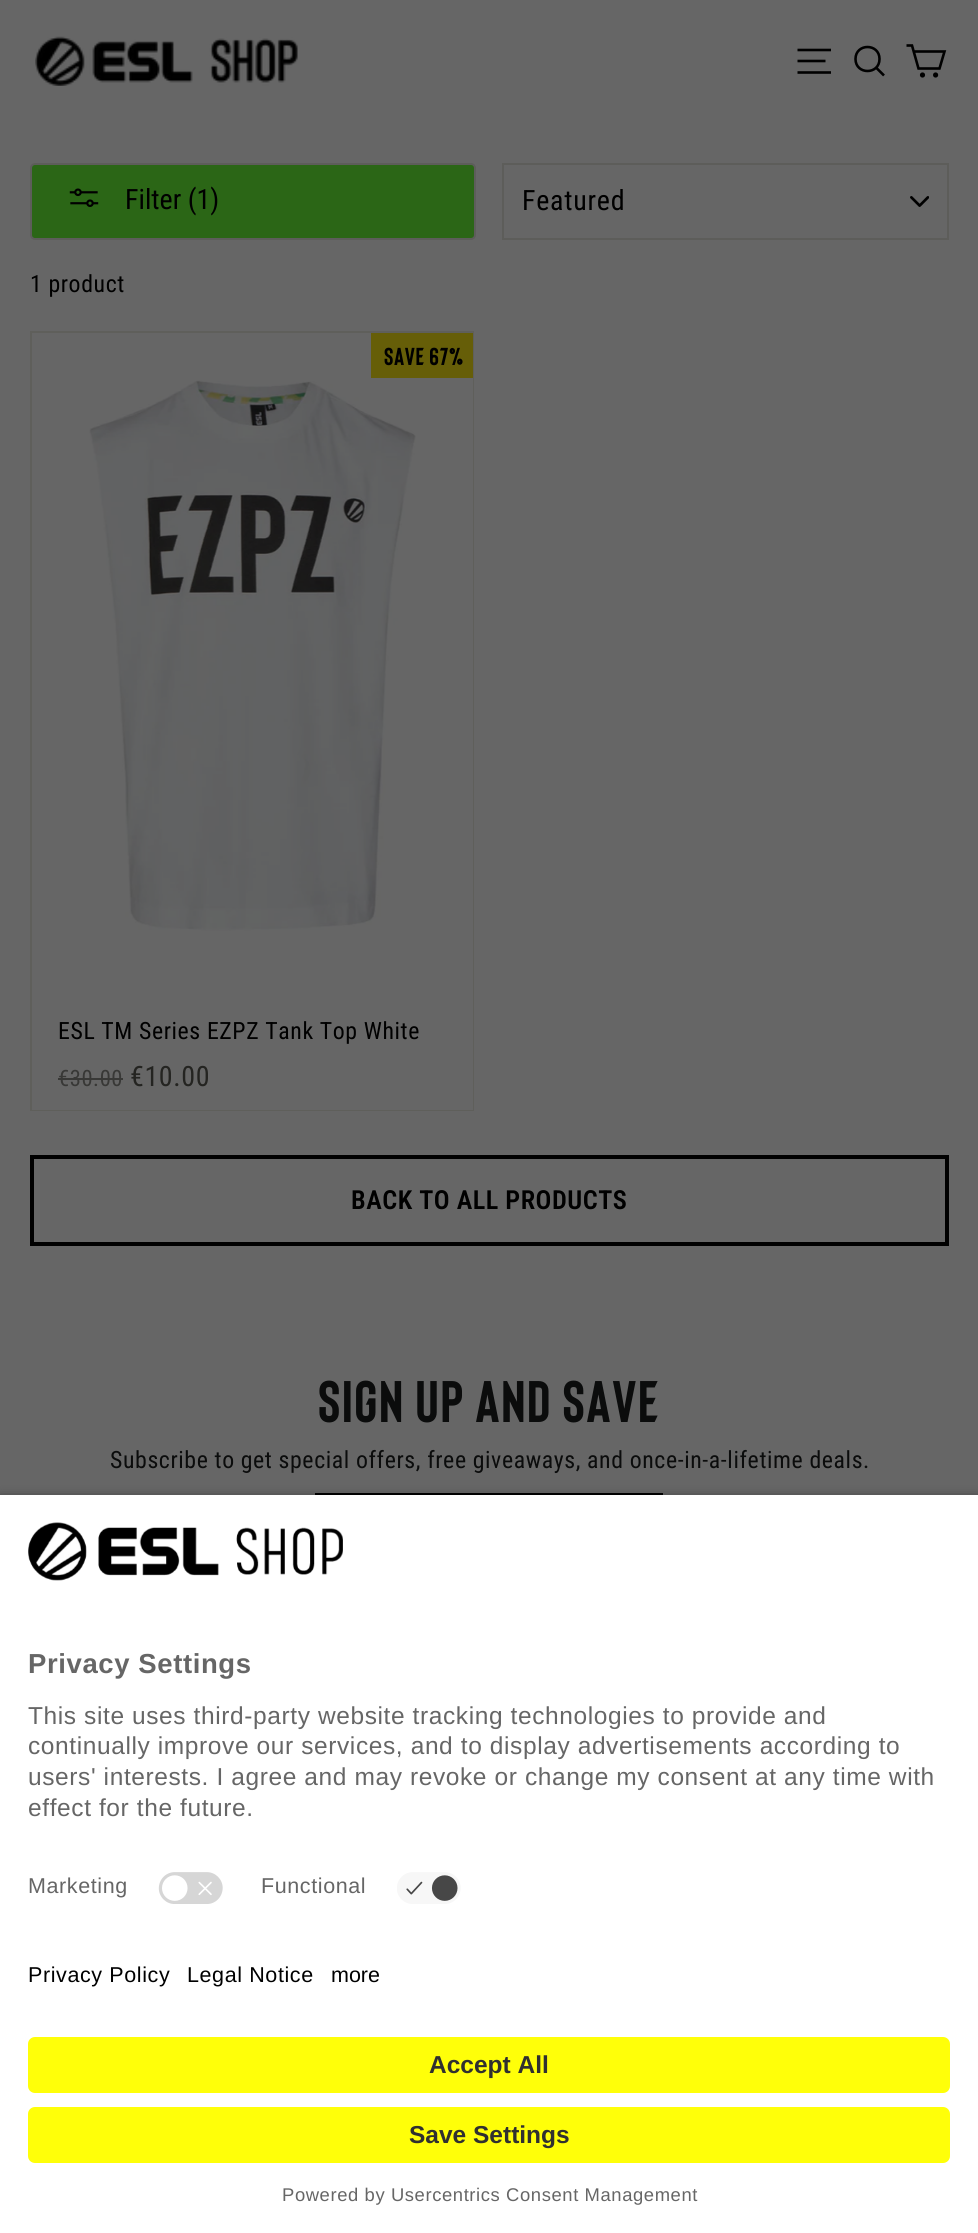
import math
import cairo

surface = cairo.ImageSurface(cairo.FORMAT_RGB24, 978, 2233)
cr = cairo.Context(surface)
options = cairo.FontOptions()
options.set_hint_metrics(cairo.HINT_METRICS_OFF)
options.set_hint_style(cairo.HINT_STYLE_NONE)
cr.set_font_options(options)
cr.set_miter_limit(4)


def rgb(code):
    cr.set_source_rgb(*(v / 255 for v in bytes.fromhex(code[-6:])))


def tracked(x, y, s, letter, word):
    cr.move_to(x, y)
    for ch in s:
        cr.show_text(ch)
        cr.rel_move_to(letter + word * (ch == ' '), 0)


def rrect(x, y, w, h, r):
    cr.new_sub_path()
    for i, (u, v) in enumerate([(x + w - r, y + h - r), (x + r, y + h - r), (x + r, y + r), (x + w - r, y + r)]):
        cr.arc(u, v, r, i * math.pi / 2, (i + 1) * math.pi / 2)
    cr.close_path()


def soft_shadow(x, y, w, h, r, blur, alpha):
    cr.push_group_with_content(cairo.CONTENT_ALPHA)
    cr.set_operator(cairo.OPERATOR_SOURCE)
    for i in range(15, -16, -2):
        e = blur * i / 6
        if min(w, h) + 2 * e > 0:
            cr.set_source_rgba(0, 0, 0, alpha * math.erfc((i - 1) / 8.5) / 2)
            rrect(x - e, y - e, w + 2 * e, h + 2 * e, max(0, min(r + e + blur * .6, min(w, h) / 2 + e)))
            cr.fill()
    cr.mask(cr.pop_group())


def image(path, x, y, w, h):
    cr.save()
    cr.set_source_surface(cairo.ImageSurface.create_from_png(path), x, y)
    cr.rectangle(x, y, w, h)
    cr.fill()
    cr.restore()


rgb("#666666")
cr.paint()
image("img/1.png", 35, 36, 263, 50)
cr.new_path()
cr.move_to(797.5, 50)
cr.line_to(831, 50)
cr.move_to(797.5, 61)
cr.line_to(825.5, 61)
cr.move_to(797.5, 72.5)
cr.line_to(831, 72.5)
rgb("#000000")
cr.set_line_width(2.6)
cr.stroke()
cr.new_path()
cr.move_to(879.5, 59)
cr.curve_to(879.5, 75, 855.5, 75, 855.5, 59)
cr.curve_to(855.5, 43, 879.5, 43, 879.5, 59)
cr.close_path()
cr.move_to(884, 75.5)
cr.line_to(876.5, 68)
cr.stroke()
cr.new_path()
cr.move_to(914, 51.5)
cr.line_to(944.5, 51.5)
cr.line_to(939.5, 68.5)
cr.line_to(918.5, 68.5)
cr.line_to(912, 45.5)
cr.line_to(906.5, 45.5)
cr.stroke()
cr.arc(922.5, 75, 1.3, 0, 2 * math.pi)
cr.stroke()
cr.arc(935.6, 75, 1.3, 0, 2 * math.pi)
cr.stroke()
rgb("#2b6616")
rrect(31, 164, 444, 75, 4)
cr.fill_preserve()
rgb("#5d5d5a")
cr.set_line_width(2)
cr.stroke()
image("img/2.png", 69, 188, 30, 19)
image("img/3.png", 910, 196, 19, 11)
cr.rectangle(503, 164, 445, 75)
cr.stroke()
cr.rectangle(31, 332, 442, 778)
rgb("#5f5f5b")
cr.stroke()
rgb("#666666")
cr.rectangle(472, 333, 1, 661)
cr.fill()
rgb("#665e08")
cr.rectangle(371, 333, 102, 45)
cr.fill()
image("img/4.png", 89, 380, 327, 551)
rgb("#666666")
cr.rectangle(32, 994, 441, 116)
cr.fill()
rgb("#383836")
cr.rectangle(58, 1078, 65, 2)
cr.fill()
cr.rectangle(32, 1157, 915, 87)
rgb("#000000")
cr.set_line_width(4)
cr.stroke()
cr.rectangle(317, 1495, 344, 66)
cr.stroke()
rgb("#000000")
soft_shadow(0, 1500, 978, 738, 0, 6, 0.8)
rgb("#ffffff")
cr.rectangle(0, 1495, 978, 738)
cr.fill()
image("img/5.png", 28, 1522, 315, 59)
image("img/6.png", 158, 1872, 65, 32)
image("img/7.png", 397, 1872, 64, 32)
rgb("#ffff09")
rrect(28, 2037, 922, 56, 7)
cr.fill()
rrect(28, 2107, 922, 56, 7)
cr.fill()
cr.select_font_face("Roboto Condensed")
cr.set_font_size(28)
rgb("#000000")
cr.move_to(125, 209)
cr.show_text("Filter (1)")
tracked(522, 210, "Featured", 0.75, 0)
cr.set_font_size(23.8)
tracked(30, 292, "1 product", 0.6, 0)
cr.select_font_face("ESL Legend", cairo.FONT_SLANT_NORMAL, cairo.FONT_WEIGHT_BOLD)
cr.set_font_size(24.5)
tracked(384, 365, "SAVE 67%", 0.6, 0)
cr.select_font_face("Roboto Condensed")
cr.set_font_size(23.8)
tracked(58, 1039, "ESL TM Series EZPZ Tank Top White", 0.6, 0)
cr.set_font_size(22.5)
rgb("#383836")
tracked(58, 1086, "€30.00", 0.6, 0)
cr.set_font_size(28)
rgb("#242421")
tracked(130, 1086, "€10.00", 0.6, 0)
cr.select_font_face("Roboto Condensed SemiBold")
cr.set_font_size(26.25)
rgb("#000000")
tracked(351, 1209, "BACK TO ALL PRODUCTS", 0.5, 0)
cr.select_font_face("ESL Legend", cairo.FONT_SLANT_NORMAL, cairo.FONT_WEIGHT_BOLD)
cr.set_font_size(58.5)
rgb("#0b0c0c")
tracked(318, 1422, "Sign up and save", 1.5, 0)
cr.select_font_face("Roboto Condensed")
cr.set_font_size(23.8)
tracked(110, 1468, "Subscribe to get special offers, free giveaways, and once-in-a-lifetime deals.", 0.6, 0)
cr.select_font_face("Liberation Sans", cairo.FONT_SLANT_NORMAL, cairo.FONT_WEIGHT_BOLD)
cr.set_font_size(27.5)
rgb("#666666")
tracked(28, 1673, "Privacy Settings", 0.6, 0)
cr.select_font_face("Liberation Sans")
cr.set_font_size(24.5)
for x, y, s in [
    (28, 1724, "This site uses third-party website tracking technologies to provide and"),
    (28, 1754, "continually improve our services, and to display advertisements according to"),
    (28, 1785, "users' interests. I agree and may revoke or change my consent at any time with"),
    (28, 1816, "effect for the future."),
]:
    tracked(x, y, s, 0.6, 0)
cr.set_font_size(21.5)
tracked(28, 1893, "Marketing", 0.6, 0)
tracked(261, 1893, "Functional", 0.6, 0)
rgb("#000000")
tracked(28, 1982, "Privacy Policy", 0.6, 0)
tracked(187, 1982, "Legal Notice", 0.6, 0)
cr.move_to(331, 1982)
cr.show_text("more")
cr.select_font_face("Liberation Sans", cairo.FONT_SLANT_NORMAL, cairo.FONT_WEIGHT_BOLD)
cr.set_font_size(24.5)
rgb("#303030")
cr.move_to(429, 2073)
cr.show_text("Accept All")
cr.move_to(409, 2143)
cr.show_text("Save Settings")
cr.select_font_face("Liberation Sans")
cr.set_font_size(18.4)
rgb("#666666")
tracked(282, 2201, "Powered by Usercentrics Consent Management", 0.6, 0)
surface.write_to_png("page.png")
